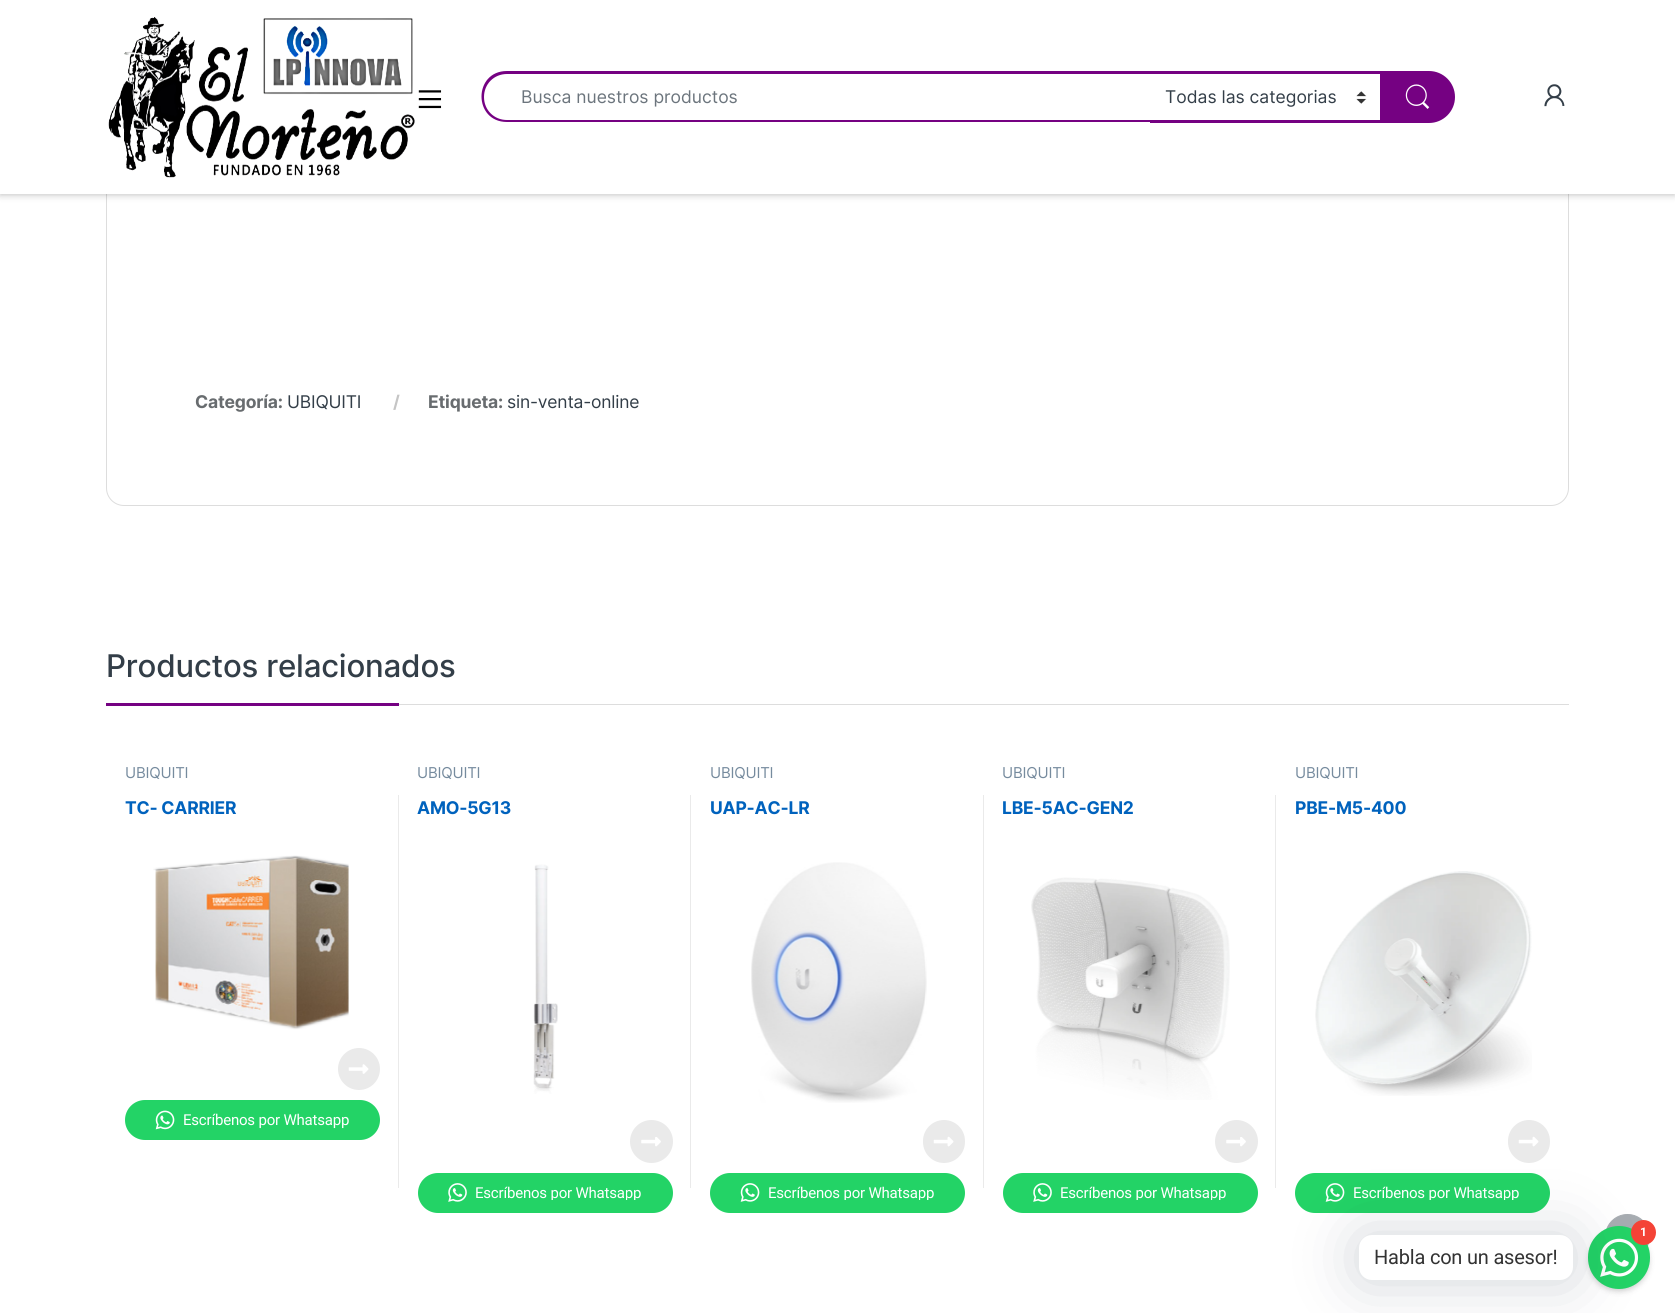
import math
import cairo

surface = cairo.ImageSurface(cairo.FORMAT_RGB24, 1675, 1313)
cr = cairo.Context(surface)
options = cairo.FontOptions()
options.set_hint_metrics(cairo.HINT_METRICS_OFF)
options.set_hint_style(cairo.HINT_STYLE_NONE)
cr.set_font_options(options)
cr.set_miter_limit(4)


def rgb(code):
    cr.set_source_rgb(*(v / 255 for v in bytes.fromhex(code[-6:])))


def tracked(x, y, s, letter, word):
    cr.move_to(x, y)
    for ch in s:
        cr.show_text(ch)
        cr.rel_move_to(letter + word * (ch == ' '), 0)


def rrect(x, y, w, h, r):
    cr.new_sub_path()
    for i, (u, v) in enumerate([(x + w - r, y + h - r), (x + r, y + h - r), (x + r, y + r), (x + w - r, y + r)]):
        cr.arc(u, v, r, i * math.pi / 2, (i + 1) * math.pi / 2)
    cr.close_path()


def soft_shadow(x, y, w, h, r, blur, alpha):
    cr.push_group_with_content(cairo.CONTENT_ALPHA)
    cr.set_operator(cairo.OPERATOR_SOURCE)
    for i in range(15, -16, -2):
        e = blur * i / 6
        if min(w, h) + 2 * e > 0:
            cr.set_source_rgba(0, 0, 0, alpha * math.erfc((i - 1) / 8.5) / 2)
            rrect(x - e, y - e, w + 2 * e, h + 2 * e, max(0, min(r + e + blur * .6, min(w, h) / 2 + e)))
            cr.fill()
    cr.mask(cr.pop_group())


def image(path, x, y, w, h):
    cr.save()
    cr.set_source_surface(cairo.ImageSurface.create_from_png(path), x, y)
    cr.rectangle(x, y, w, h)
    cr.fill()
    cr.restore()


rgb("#ffffff")
cr.paint()
rrect(106.5, -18.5, 1462, 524, 17.5)
rgb("#dddddd")
cr.set_line_width(1)
cr.stroke()
rgb("#010101")
soft_shadow(0, 0, 1675, 194, 0, 4, 0.3)
rgb("#ffffff")
cr.rectangle(0, 0, 1675, 194)
cr.fill()
image("img/1.png", 108, 17, 307, 161)
image("img/2.png", 418, 90, 24, 19)
rgb("#750182")
cr.set_fill_rule(cairo.FILL_RULE_EVEN_ODD)
cr.new_path()
cr.move_to(507, 71)
cr.line_to(1151, 71)
cr.line_to(1151, 122)
cr.line_to(507, 122)
cr.curve_to(473, 122, 473, 71, 507, 71)
cr.close_path()
cr.move_to(507, 74)
cr.line_to(1151, 74)
cr.line_to(1151, 120)
cr.line_to(507, 120)
cr.curve_to(494, 120, 484, 110, 484, 97)
cr.curve_to(484, 84, 494, 74, 507, 74)
cr.close_path()
cr.fill()
cr.rectangle(1150, 71, 231, 3)
cr.fill()
cr.rectangle(1150, 120, 231, 3)
cr.fill()
image("img/3.png", 1356, 91, 11, 13)
cr.new_path()
cr.move_to(1381.5, 72.5)
cr.line_to(1429, 72.5)
cr.curve_to(1442.5, 72.5, 1453.5, 83.5, 1453.5, 97)
cr.curve_to(1453.5, 110.5, 1442.5, 121.5, 1429, 121.5)
cr.line_to(1381.5, 121.5)
cr.close_path()
cr.fill_preserve()
cr.set_line_width(3)
cr.stroke()
image("img/4.png", 1405, 84, 25, 25)
image("img/5.png", 1544, 84, 21, 23)
rgb("#dddddd")
cr.rectangle(399, 704, 1170, 1)
cr.fill()
rgb("#750182")
cr.rectangle(106, 703, 293, 3)
cr.fill()
image("img/6.png", 153, 855, 196, 175)
rgb("#eaeaea")
cr.arc(359, 1069, 21, 0, 2 * math.pi)
cr.fill()
image("img/7.png", 348, 1064, 21, 10)
rgb("#23d366")
rrect(125, 1100, 255, 40, 20)
cr.fill()
image("img/8.png", 155, 1110, 20, 20)
rgb("#eaeaea")
cr.rectangle(398, 795, 1, 393)
cr.fill()
image("img/9.png", 533, 864, 25, 230)
cr.arc(651.5, 1141.5, 21.5, 0, 2 * math.pi)
cr.fill()
image("img/10.png", 641, 1137, 20, 10)
rgb("#23d366")
rrect(418, 1173, 255, 40, 20)
cr.fill()
image("img/11.png", 448, 1183, 19, 19)
rgb("#eaeaea")
cr.rectangle(690, 795, 1, 393)
cr.fill()
image("img/12.png", 751, 862, 176, 241)
rrect(923, 1120, 42, 43, 21)
cr.fill()
image("img/13.png", 933, 1136, 21, 11)
rgb("#23d366")
rrect(710, 1173, 255, 40, 20)
cr.fill()
image("img/14.png", 740, 1183, 20, 19)
rgb("#eaeaea")
cr.rectangle(983, 795, 1, 393)
cr.fill()
image("img/15.png", 1031, 877, 199, 223)
cr.arc(1236.5, 1141.5, 21.5, 0, 2 * math.pi)
cr.fill()
image("img/10.png", 1226, 1137, 20, 10)
rgb("#23d366")
rrect(1003, 1173, 255, 40, 20)
cr.fill()
image("img/11.png", 1033, 1183, 19, 19)
rgb("#eaeaea")
cr.rectangle(1275, 795, 1, 393)
cr.fill()
image("img/16.png", 1315, 871, 217, 225)
rrect(1508, 1120, 42, 43, 21)
cr.fill()
image("img/13.png", 1518, 1136, 21, 11)
rgb("#23d366")
rrect(1295, 1173, 255, 40, 20)
cr.fill()
image("img/14.png", 1325, 1183, 20, 19)
rgb("#a7acb1")
cr.arc(1627.5, 1236.5, 22, 0, 2 * math.pi)
cr.fill_preserve()
cr.set_line_width(1)
cr.stroke()
rgb("#000000")
soft_shadow(1589, 1231, 60, 60, 30, 3, 0.2)
rgb("#23d366")
rrect(1588, 1226, 62, 63, 31)
cr.fill()
image("img/17.png", 1600, 1238, 39, 39)
rgb("#00122e")
soft_shadow(1359, 1236, 214, 45, 13, 31, 0.18)
rgb("#f44336")
cr.arc(1643.5, 1232.5, 12.5, 0, 2 * math.pi)
cr.fill()
rgb("#ffffff")
rrect(1359, 1235, 214, 45, 13)
cr.fill()
cr.select_font_face("Inter")
cr.set_font_size(17.5)
rgb("#6c757d")
cr.move_to(521, 103)
cr.show_text("Busca nuestros productos")
rgb("#333e48")
cr.move_to(1165, 103)
cr.show_text("Todas las categorias")
cr.select_font_face("Inter", cairo.FONT_SLANT_NORMAL, cairo.FONT_WEIGHT_BOLD)
rgb("#686c6f")
tracked(195, 408, "Categoría:", -0.2, 0)
cr.select_font_face("Inter")
rgb("#333e48")
tracked(287, 408, "UBIQUITI", -0.2, 0)
cr.select_font_face("Inter", cairo.FONT_SLANT_NORMAL, cairo.FONT_WEIGHT_BOLD)
rgb("#c5c5c5")
tracked(393, 408, "/", -0.2, 0)
rgb("#686c6f")
tracked(428, 408, "Etiqueta:", -0.2, 0)
cr.select_font_face("Inter")
rgb("#333e48")
tracked(507, 408, "sin-venta-online", -0.2, 0)
cr.select_font_face("Inter Medium")
cr.set_font_size(31.25)
tracked(106, 677, "Productos relacionados", -0.2, 0)
cr.select_font_face("Inter")
cr.set_font_size(15)
rgb("#768b9e")
tracked(125, 778, "UBIQUITI", -0.2, 0)
cr.select_font_face("Inter", cairo.FONT_SLANT_NORMAL, cairo.FONT_WEIGHT_BOLD)
cr.set_font_size(17.5)
rgb("#0062bd")
tracked(125, 814, "TC- CARRIER", -0.2, 0)
cr.select_font_face("Roboto")
cr.set_font_size(15)
rgb("#ffffff")
tracked(183, 1125, "Escríbenos por Whatsapp", -0.2, 0)
cr.select_font_face("Inter")
rgb("#768b9e")
tracked(417, 778, "UBIQUITI", -0.2, 0)
cr.select_font_face("Inter", cairo.FONT_SLANT_NORMAL, cairo.FONT_WEIGHT_BOLD)
cr.set_font_size(17.5)
rgb("#0062bd")
tracked(417, 814, "AMO-5G13", -0.2, 0)
cr.save()
cr.set_fill_rule(cairo.FILL_RULE_WINDING)
cr.rectangle(475, 1185, 168, 15)
cr.clip()
cr.select_font_face("Roboto")
cr.set_font_size(15)
rgb("#ffffff")
tracked(475, 1198, "Escríbenos por Whatsapp", -0.2, 0)
cr.restore()
cr.select_font_face("Inter")
cr.set_font_size(15)
rgb("#768b9e")
tracked(710, 778, "UBIQUITI", -0.2, 0)
cr.select_font_face("Inter", cairo.FONT_SLANT_NORMAL, cairo.FONT_WEIGHT_BOLD)
cr.set_font_size(17.5)
rgb("#0062bd")
tracked(710, 814, "UAP-AC-LR", -0.2, 0)
cr.save()
cr.set_fill_rule(cairo.FILL_RULE_WINDING)
cr.rectangle(768, 1185, 167, 15)
cr.clip()
cr.select_font_face("Roboto")
cr.set_font_size(15)
rgb("#ffffff")
tracked(768, 1198, "Escríbenos por Whatsapp", -0.2, 0)
cr.restore()
cr.select_font_face("Inter")
cr.set_font_size(15)
rgb("#768b9e")
tracked(1002, 778, "UBIQUITI", -0.2, 0)
cr.select_font_face("Inter", cairo.FONT_SLANT_NORMAL, cairo.FONT_WEIGHT_BOLD)
cr.set_font_size(17.5)
rgb("#0062bd")
tracked(1002, 814, "LBE-5AC-GEN2", -0.2, 0)
cr.save()
cr.set_fill_rule(cairo.FILL_RULE_WINDING)
cr.rectangle(1060, 1185, 168, 15)
cr.clip()
cr.select_font_face("Roboto")
cr.set_font_size(15)
rgb("#ffffff")
tracked(1060, 1198, "Escríbenos por Whatsapp", -0.2, 0)
cr.restore()
cr.select_font_face("Inter")
cr.set_font_size(15)
rgb("#768b9e")
tracked(1295, 778, "UBIQUITI", -0.2, 0)
cr.select_font_face("Inter", cairo.FONT_SLANT_NORMAL, cairo.FONT_WEIGHT_BOLD)
cr.set_font_size(17.5)
rgb("#0062bd")
tracked(1295, 814, "PBE-M5-400", -0.2, 0)
cr.save()
cr.set_fill_rule(cairo.FILL_RULE_WINDING)
cr.rectangle(1353, 1185, 167, 15)
cr.clip()
cr.select_font_face("Roboto")
cr.set_font_size(15)
rgb("#ffffff")
tracked(1353, 1198, "Escríbenos por Whatsapp", -0.2, 0)
cr.restore()
cr.select_font_face("Roboto", cairo.FONT_SLANT_NORMAL, cairo.FONT_WEIGHT_BOLD)
cr.set_font_size(12)
rgb("#ffffff")
tracked(1640, 1236, "1", -0.2, 0)
cr.select_font_face("Roboto")
cr.set_font_size(20)
rgb("#333333")
tracked(1374, 1264, "Habla con un asesor!", -0.2, 0)
surface.write_to_png("page.png")
